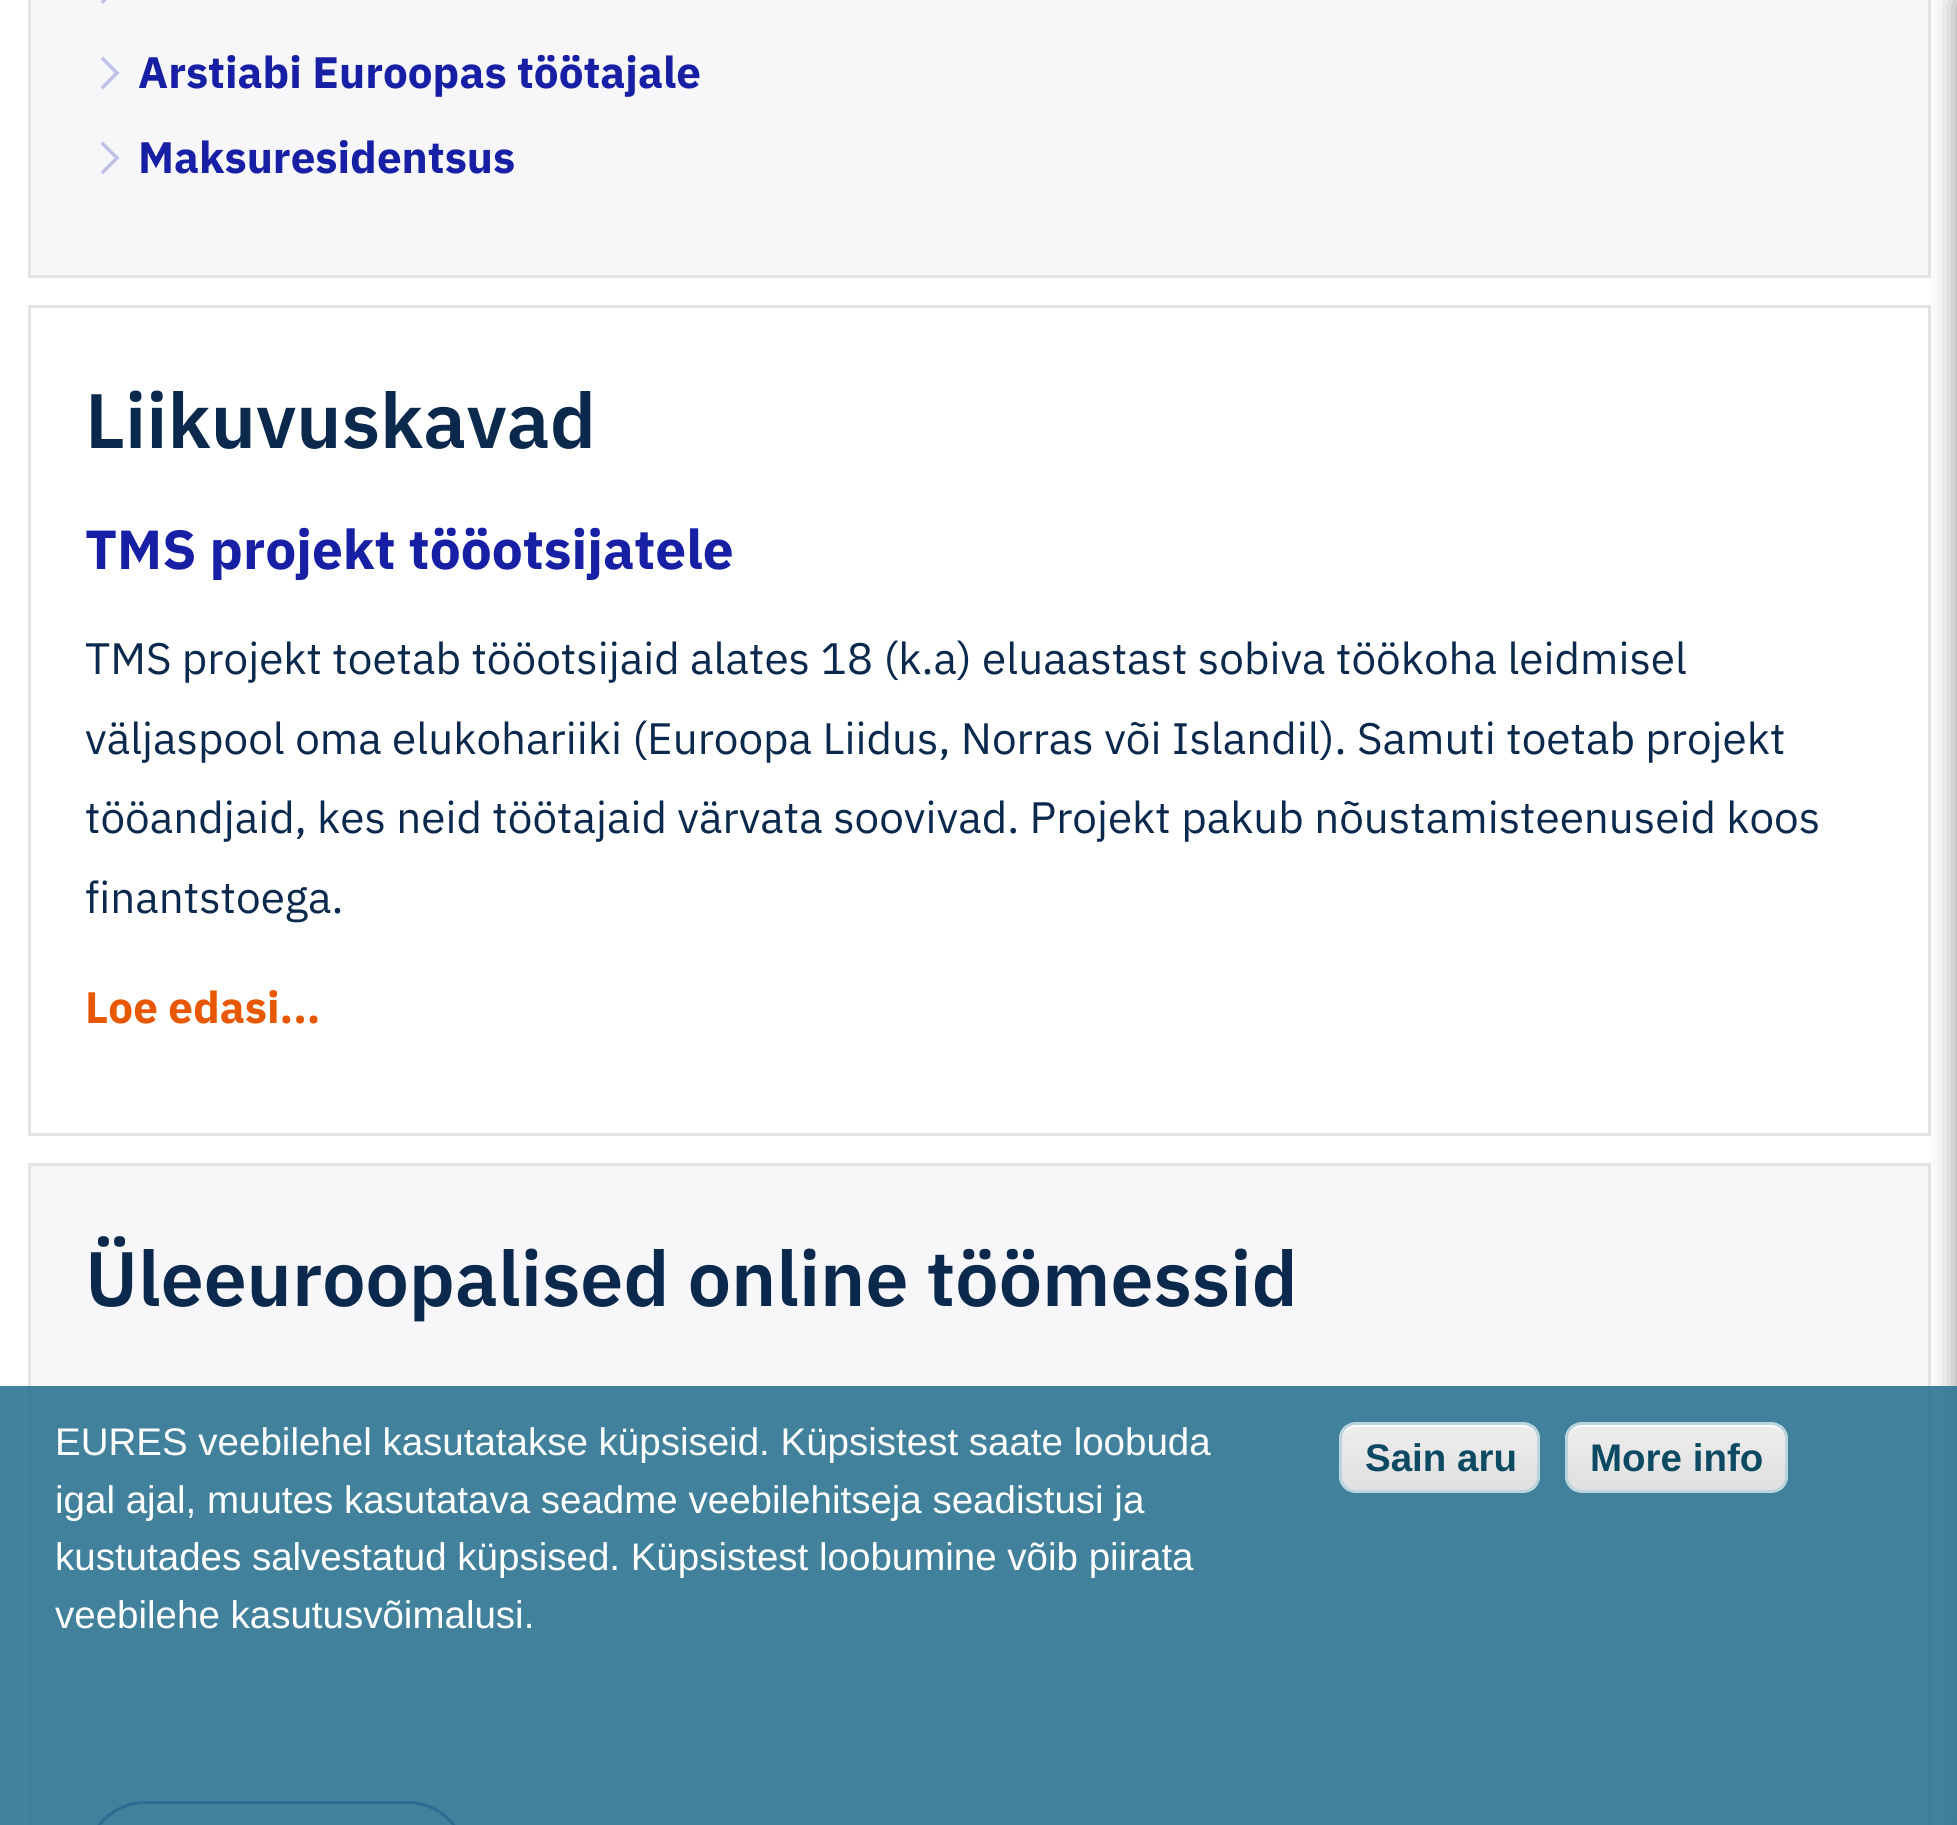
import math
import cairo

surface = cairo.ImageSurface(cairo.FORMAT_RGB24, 1957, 1825)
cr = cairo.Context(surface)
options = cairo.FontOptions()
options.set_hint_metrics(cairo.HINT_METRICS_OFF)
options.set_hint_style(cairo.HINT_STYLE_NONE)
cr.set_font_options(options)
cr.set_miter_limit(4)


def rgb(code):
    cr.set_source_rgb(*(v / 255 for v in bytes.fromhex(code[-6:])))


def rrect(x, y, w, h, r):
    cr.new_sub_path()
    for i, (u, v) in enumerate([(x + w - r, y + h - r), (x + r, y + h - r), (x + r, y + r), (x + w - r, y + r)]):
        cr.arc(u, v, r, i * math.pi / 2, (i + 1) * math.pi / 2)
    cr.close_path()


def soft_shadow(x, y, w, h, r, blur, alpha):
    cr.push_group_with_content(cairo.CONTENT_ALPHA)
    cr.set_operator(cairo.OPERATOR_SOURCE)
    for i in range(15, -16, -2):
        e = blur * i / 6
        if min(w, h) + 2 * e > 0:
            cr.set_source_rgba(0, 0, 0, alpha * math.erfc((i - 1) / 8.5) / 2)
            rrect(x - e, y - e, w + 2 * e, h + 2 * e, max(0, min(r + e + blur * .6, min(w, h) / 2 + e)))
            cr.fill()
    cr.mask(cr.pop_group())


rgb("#ffffff")
cr.paint()
rgb("#f7f7fa")
cr.rectangle(29.5, -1.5, 1900, 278)
cr.fill_preserve()
rgb("#e4e4e4")
cr.set_line_width(3)
cr.stroke()
rgb("#bfc2e6")
cr.new_path()
cr.move_to(114.5, -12.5)
cr.line_to(100.5, 1.5)
cr.line_to(103, 4)
cr.line_to(119.5, -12.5)
cr.line_to(103, -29)
cr.line_to(100.5, -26.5)
cr.close_path()
cr.fill()
cr.new_path()
cr.move_to(114.5, 73)
cr.line_to(100.5, 87)
cr.line_to(103, 89.5)
cr.line_to(119.5, 73)
cr.line_to(103, 56.5)
cr.line_to(100.5, 59)
cr.close_path()
cr.fill()
cr.new_path()
cr.move_to(114.5, 158)
cr.line_to(100.5, 172)
cr.line_to(103, 174.5)
cr.line_to(119.5, 158)
cr.line_to(103, 141.5)
cr.line_to(100.5, 144)
cr.close_path()
cr.fill()
cr.rectangle(29.5, 306.5, 1900, 828)
rgb("#e4e4e4")
cr.stroke()
rgb("#f7f7fa")
cr.rectangle(29.5, 1164.5, 1900, 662)
cr.fill_preserve()
rgb("#e4e4e4")
cr.stroke()
rgb("#000000")
soft_shadow(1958, 0, 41, 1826, 0, 14, 0.25)
rrect(86.5, 1802.5, 380, 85, 59)
rgb("#171fa5")
cr.stroke()
rgb("#000000")
soft_shadow(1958, 0, 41, 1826, 0, 14, 0.25)
cr.set_source_rgba(0.18, 0.459, 0.569, 0.9)
cr.rectangle(0, 1386, 1957, 439)
cr.fill()
cr.save()
rrect(1339, 1422, 201, 71, 17)
cr.clip()
gradient = cairo.LinearGradient(1440, 1425, 1440, 1491)
gradient.add_color_stop_rgba(0.05, 0.929, 0.929, 0.929, 1)
gradient.add_color_stop_rgba(1, 0.875, 0.875, 0.875, 1)
cr.set_source(gradient)
cr.rectangle(1339, 1425, 201, 66)
cr.fill()
cr.restore()
rgb("#ffffff")
cr.new_path()
cr.move_to(1356, 1427)
cr.line_to(1524, 1427)
cr.curve_to(1531, 1427, 1537, 1433, 1537, 1441)
cr.curve_to(1537, 1418, 1510, 1425, 1495, 1425)
cr.line_to(1384, 1425)
cr.curve_to(1369, 1425, 1342, 1418, 1342, 1441)
cr.curve_to(1342, 1433, 1348, 1427, 1356, 1427)
cr.close_path()
cr.fill()
rrect(1340.5, 1423.5, 198, 68, 15.5)
rgb("#bad5de")
cr.stroke()
cr.save()
rrect(1565, 1422, 223, 71, 17)
cr.clip()
gradient = cairo.LinearGradient(1676, 1425, 1676, 1491)
gradient.add_color_stop_rgba(0.05, 0.929, 0.929, 0.929, 1)
gradient.add_color_stop_rgba(1, 0.875, 0.875, 0.875, 1)
cr.set_source(gradient)
cr.rectangle(1565, 1425, 223, 66)
cr.fill()
cr.restore()
rgb("#ffffff")
cr.new_path()
cr.move_to(1581, 1427)
cr.line_to(1771, 1427)
cr.curve_to(1779, 1427, 1785, 1433, 1785, 1441)
cr.line_to(1785, 1439)
cr.curve_to(1785, 1431, 1779, 1425, 1771, 1425)
cr.line_to(1582, 1425)
cr.curve_to(1574, 1425, 1568, 1431, 1568, 1439)
cr.line_to(1568, 1441)
cr.curve_to(1568, 1433, 1574, 1427, 1581, 1427)
cr.close_path()
cr.fill()
rrect(1566.5, 1423.5, 220, 68, 15.5)
rgb("#bad5de")
cr.stroke()
cr.select_font_face("IBM Plex Sans", cairo.FONT_SLANT_NORMAL, cairo.FONT_WEIGHT_BOLD)
cr.set_font_size(44)
rgb("#171fa5")
cr.move_to(138, 88)
cr.show_text("Arstiabi Euroopas töötajale")
cr.move_to(138, 173)
cr.show_text("Maksuresidentsus")
cr.select_font_face("IBM Plex Sans SemiBold")
cr.set_font_size(77)
rgb("#0b294c")
cr.move_to(85, 448)
cr.show_text("Liikuvuskavad")
cr.select_font_face("IBM Plex Sans", cairo.FONT_SLANT_NORMAL, cairo.FONT_WEIGHT_BOLD)
cr.set_font_size(55)
rgb("#171fa5")
cr.move_to(85, 569)
cr.show_text("TMS projekt tööotsijatele")
cr.select_font_face("IBM Plex Sans")
cr.set_font_size(44)
rgb("#0b294c")
for x, y, s in [
    (85, 674, "TMS projekt toetab tööotsijaid alates 18 (k.a) eluaastast sobiva töökoha leidmisel"),
    (85, 754, "väljaspool oma elukohariiki (Euroopa Liidus, Norras või Islandil). Samuti toetab projekt"),
    (85, 833, "tööandjaid, kes neid töötajaid värvata soovivad. Projekt pakub nõustamisteenuseid koos"),
    (85, 913, "finantstoega."),
]:
    cr.move_to(x, y)
    cr.show_text(s)
cr.select_font_face("IBM Plex Sans", cairo.FONT_SLANT_NORMAL, cairo.FONT_WEIGHT_BOLD)
rgb("#e85701")
cr.move_to(85, 1023)
cr.show_text("Loe edasi...")
cr.select_font_face("IBM Plex Sans SemiBold")
cr.set_font_size(77)
rgb("#0b294c")
cr.move_to(85, 1306)
cr.show_text("Üleeuroopalised online töömessid")
cr.select_font_face("Liberation Sans")
cr.set_font_size(38.5)
rgb("#ffffff")
for x, y, s in [
    (55, 1455, "EURES veebilehel kasutatakse küpsiseid. Küpsistest saate loobuda"),
    (55, 1513, "igal ajal, muutes kasutatava seadme veebilehitseja seadistusi ja"),
    (55, 1570, "kustutades salvestatud küpsised. Küpsistest loobumine võib piirata"),
    (55, 1628, "veebilehe kasutusvõimalusi."),
]:
    cr.move_to(x, y)
    cr.show_text(s)
cr.select_font_face("Liberation Sans", cairo.FONT_SLANT_NORMAL, cairo.FONT_WEIGHT_BOLD)
rgb("#0c4962")
cr.move_to(1365, 1471)
cr.show_text("Sain aru")
cr.move_to(1590, 1471)
cr.show_text("More info")
surface.write_to_png("page.png")
